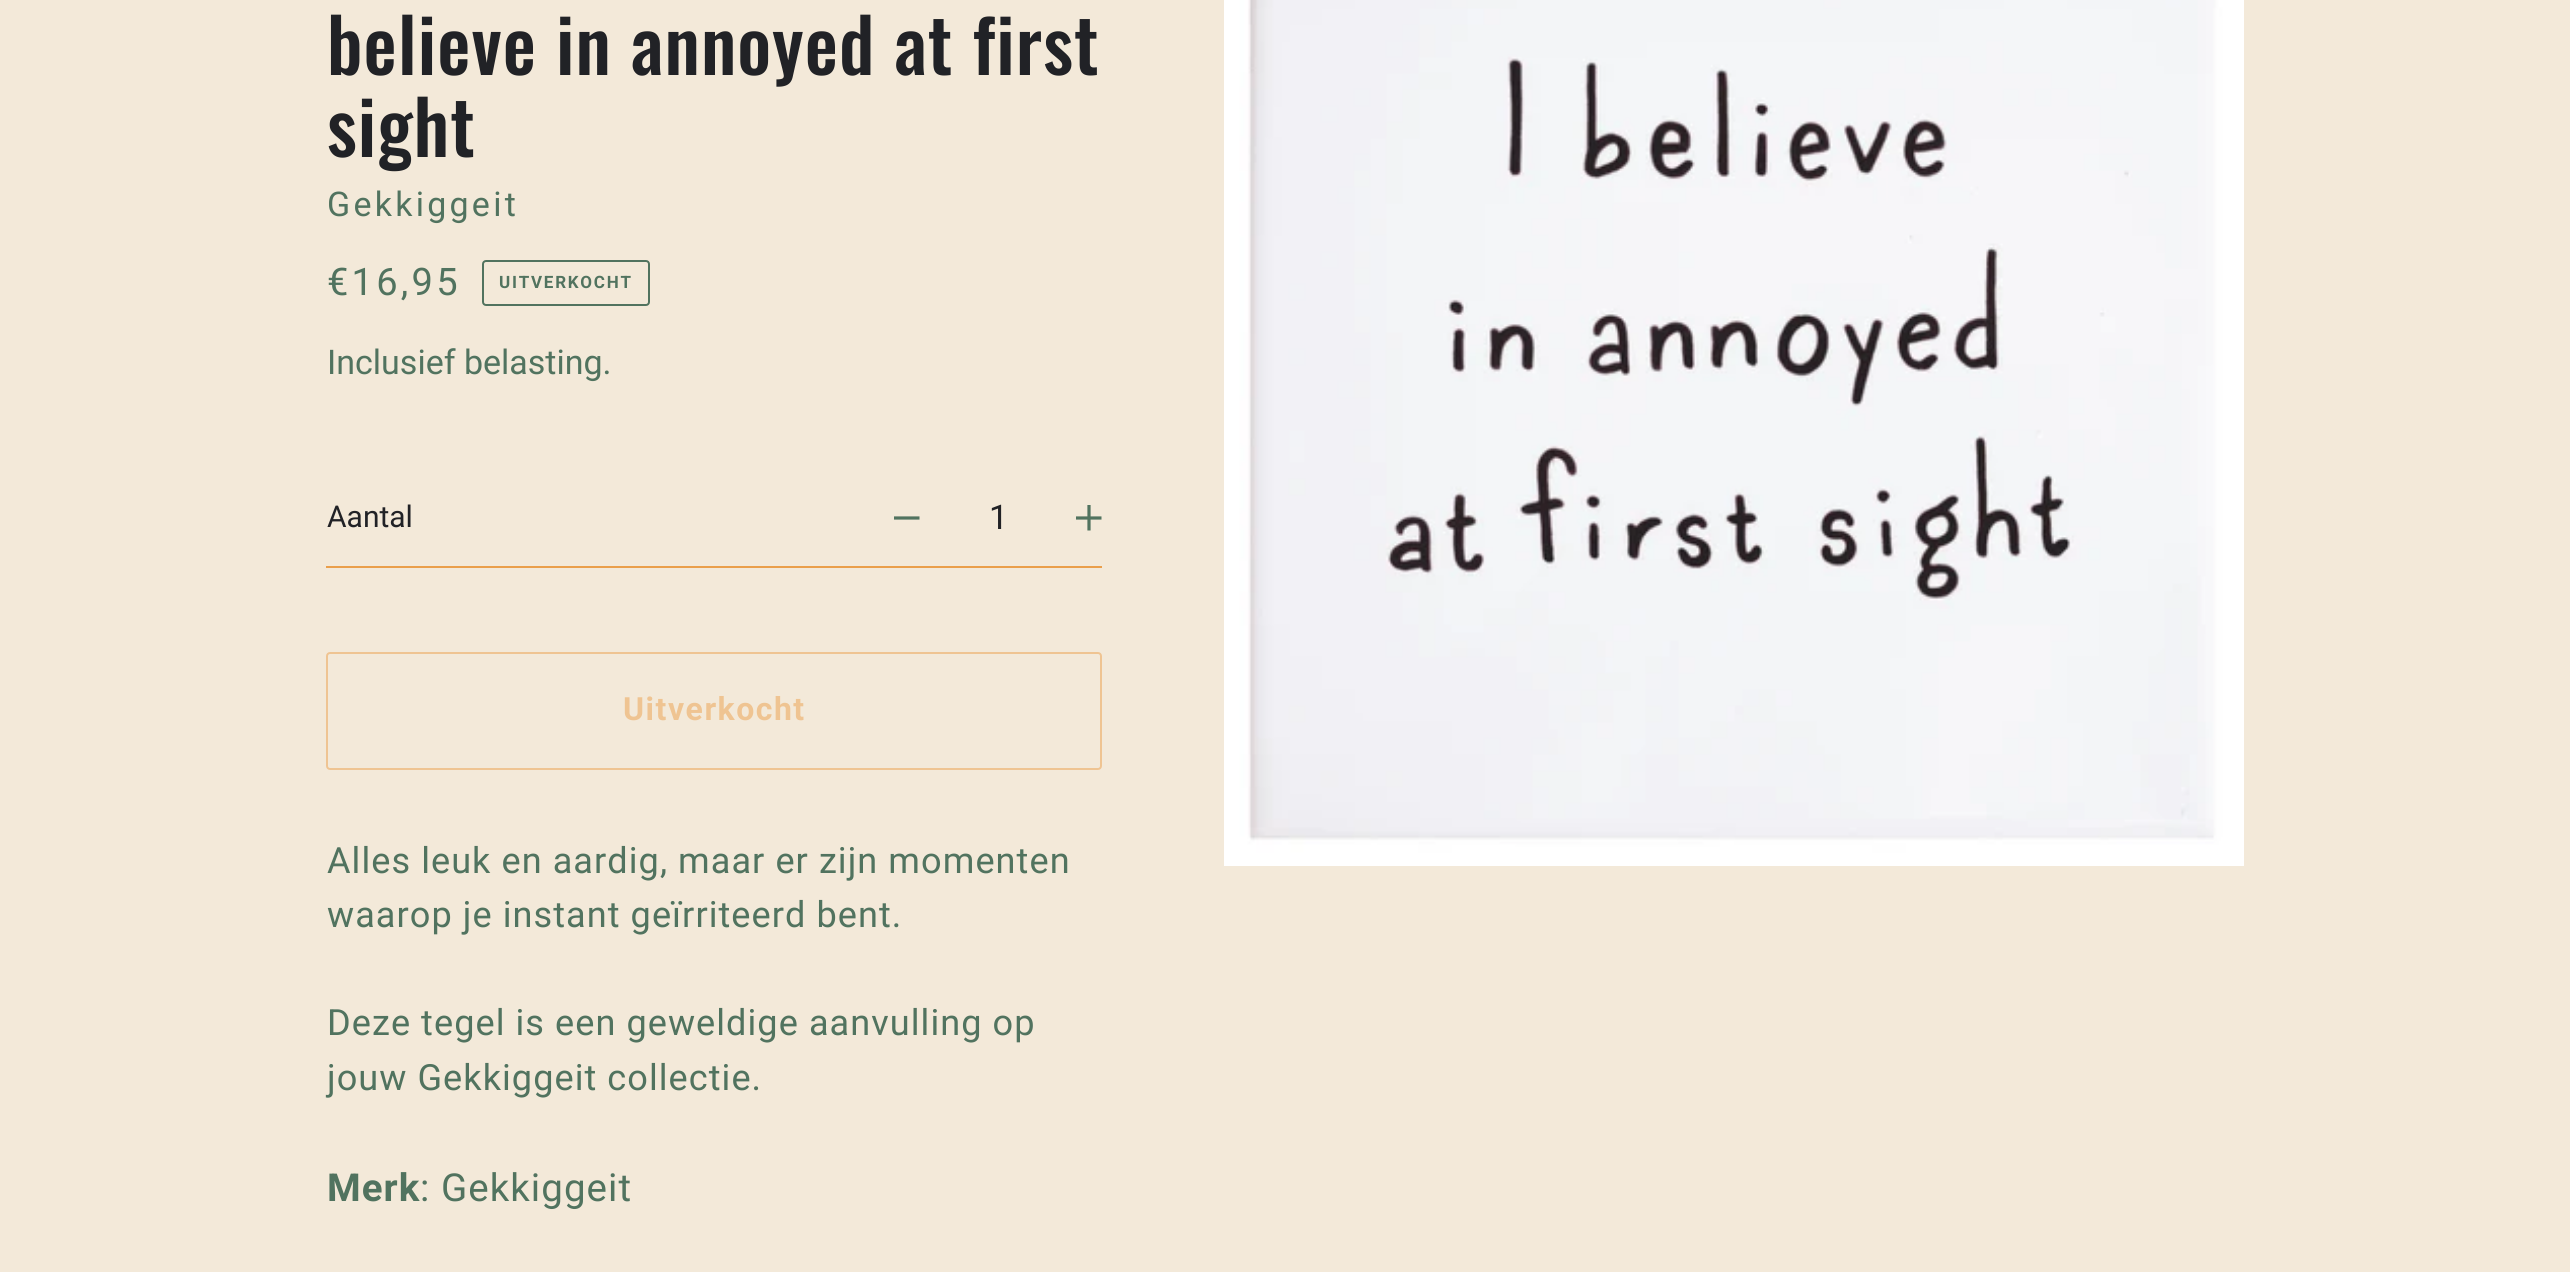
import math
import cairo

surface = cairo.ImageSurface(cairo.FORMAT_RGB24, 2570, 1272)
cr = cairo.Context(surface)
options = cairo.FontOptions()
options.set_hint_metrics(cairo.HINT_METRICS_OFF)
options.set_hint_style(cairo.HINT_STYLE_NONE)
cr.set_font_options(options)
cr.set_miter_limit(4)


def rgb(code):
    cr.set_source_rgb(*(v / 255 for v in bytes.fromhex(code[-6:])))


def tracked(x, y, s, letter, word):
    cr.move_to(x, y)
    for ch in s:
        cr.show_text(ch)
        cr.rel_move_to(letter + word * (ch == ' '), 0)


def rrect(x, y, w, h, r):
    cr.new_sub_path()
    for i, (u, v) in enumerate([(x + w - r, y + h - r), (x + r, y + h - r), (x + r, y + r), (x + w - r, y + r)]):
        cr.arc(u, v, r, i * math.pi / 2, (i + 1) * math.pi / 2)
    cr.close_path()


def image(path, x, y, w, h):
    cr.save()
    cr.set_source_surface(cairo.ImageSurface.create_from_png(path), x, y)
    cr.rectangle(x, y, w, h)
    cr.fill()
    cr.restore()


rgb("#f3e9d9")
cr.paint()
rrect(483, 261, 166, 44, 3)
rgb("#51735f")
cr.stroke()
rgb("#ea9f4b")
cr.rectangle(326, 566, 776, 2)
cr.fill()
cr.new_path()
cr.move_to(894, 518)
cr.line_to(919.5, 518)
rgb("#51735f")
cr.set_line_width(3.2)
cr.stroke()
cr.new_path()
cr.move_to(1076, 518)
cr.line_to(1101.5, 518)
cr.move_to(1089, 505)
cr.line_to(1089, 530.5)
cr.stroke()
rrect(327, 653, 774, 116, 3)
rgb("#efc492")
cr.set_line_width(2)
cr.stroke()
image("img/1.png", 1224, 0, 1020, 866)
cr.select_font_face("Oswald Medium")
cr.set_font_size(74.5)
rgb("#212226")
tracked(327, 75, "believe in annoyed at first", 1.05, 0)
tracked(327, 157, "sight", 1.05, 0)
cr.select_font_face("Roboto")
cr.set_font_size(34)
rgb("#51735f")
tracked(327, 216, "Gekkiggeit", 3.25, 0)
cr.set_font_size(38)
tracked(327, 295, "€16,95", 3.25, 0)
cr.select_font_face("Roboto", cairo.FONT_SLANT_NORMAL, cairo.FONT_WEIGHT_BOLD)
cr.set_font_size(17)
tracked(499, 288, "UITVERKOCHT", 1.75, 0)
cr.select_font_face("Roboto")
cr.set_font_size(34)
cr.move_to(327, 374)
cr.show_text("Inclusief belasting.")
cr.set_font_size(30)
rgb("#212226")
cr.move_to(327, 527)
cr.show_text("Aantal")
cr.set_font_size(34)
cr.move_to(989, 529)
cr.show_text("1")
cr.select_font_face("Roboto", cairo.FONT_SLANT_NORMAL, cairo.FONT_WEIGHT_BOLD)
cr.set_font_size(32)
rgb("#efc492")
tracked(623, 720, "Uitverkocht", 1.5, 0)
cr.select_font_face("Roboto")
cr.set_font_size(36.1)
rgb("#51735f")
for x, y, s in [
    (327, 873, "Alles leuk en aardig, maar er zijn momenten"),
    (327, 927, "waarop je instant geïrriteerd bent."),
    (327, 1035, "Deze tegel is een geweldige aanvulling op"),
    (327, 1090, "jouw Gekkiggeit collectie."),
]:
    tracked(x, y, s, 1.05, 0)
cr.select_font_face("Roboto", cairo.FONT_SLANT_NORMAL, cairo.FONT_WEIGHT_BOLD)
cr.set_font_size(38.5)
tracked(327, 1201, "Merk", 1.05, 0)
cr.select_font_face("Roboto")
tracked(420, 1201, ": Gekkiggeit", 1.05, 0)
surface.write_to_png("page.png")
